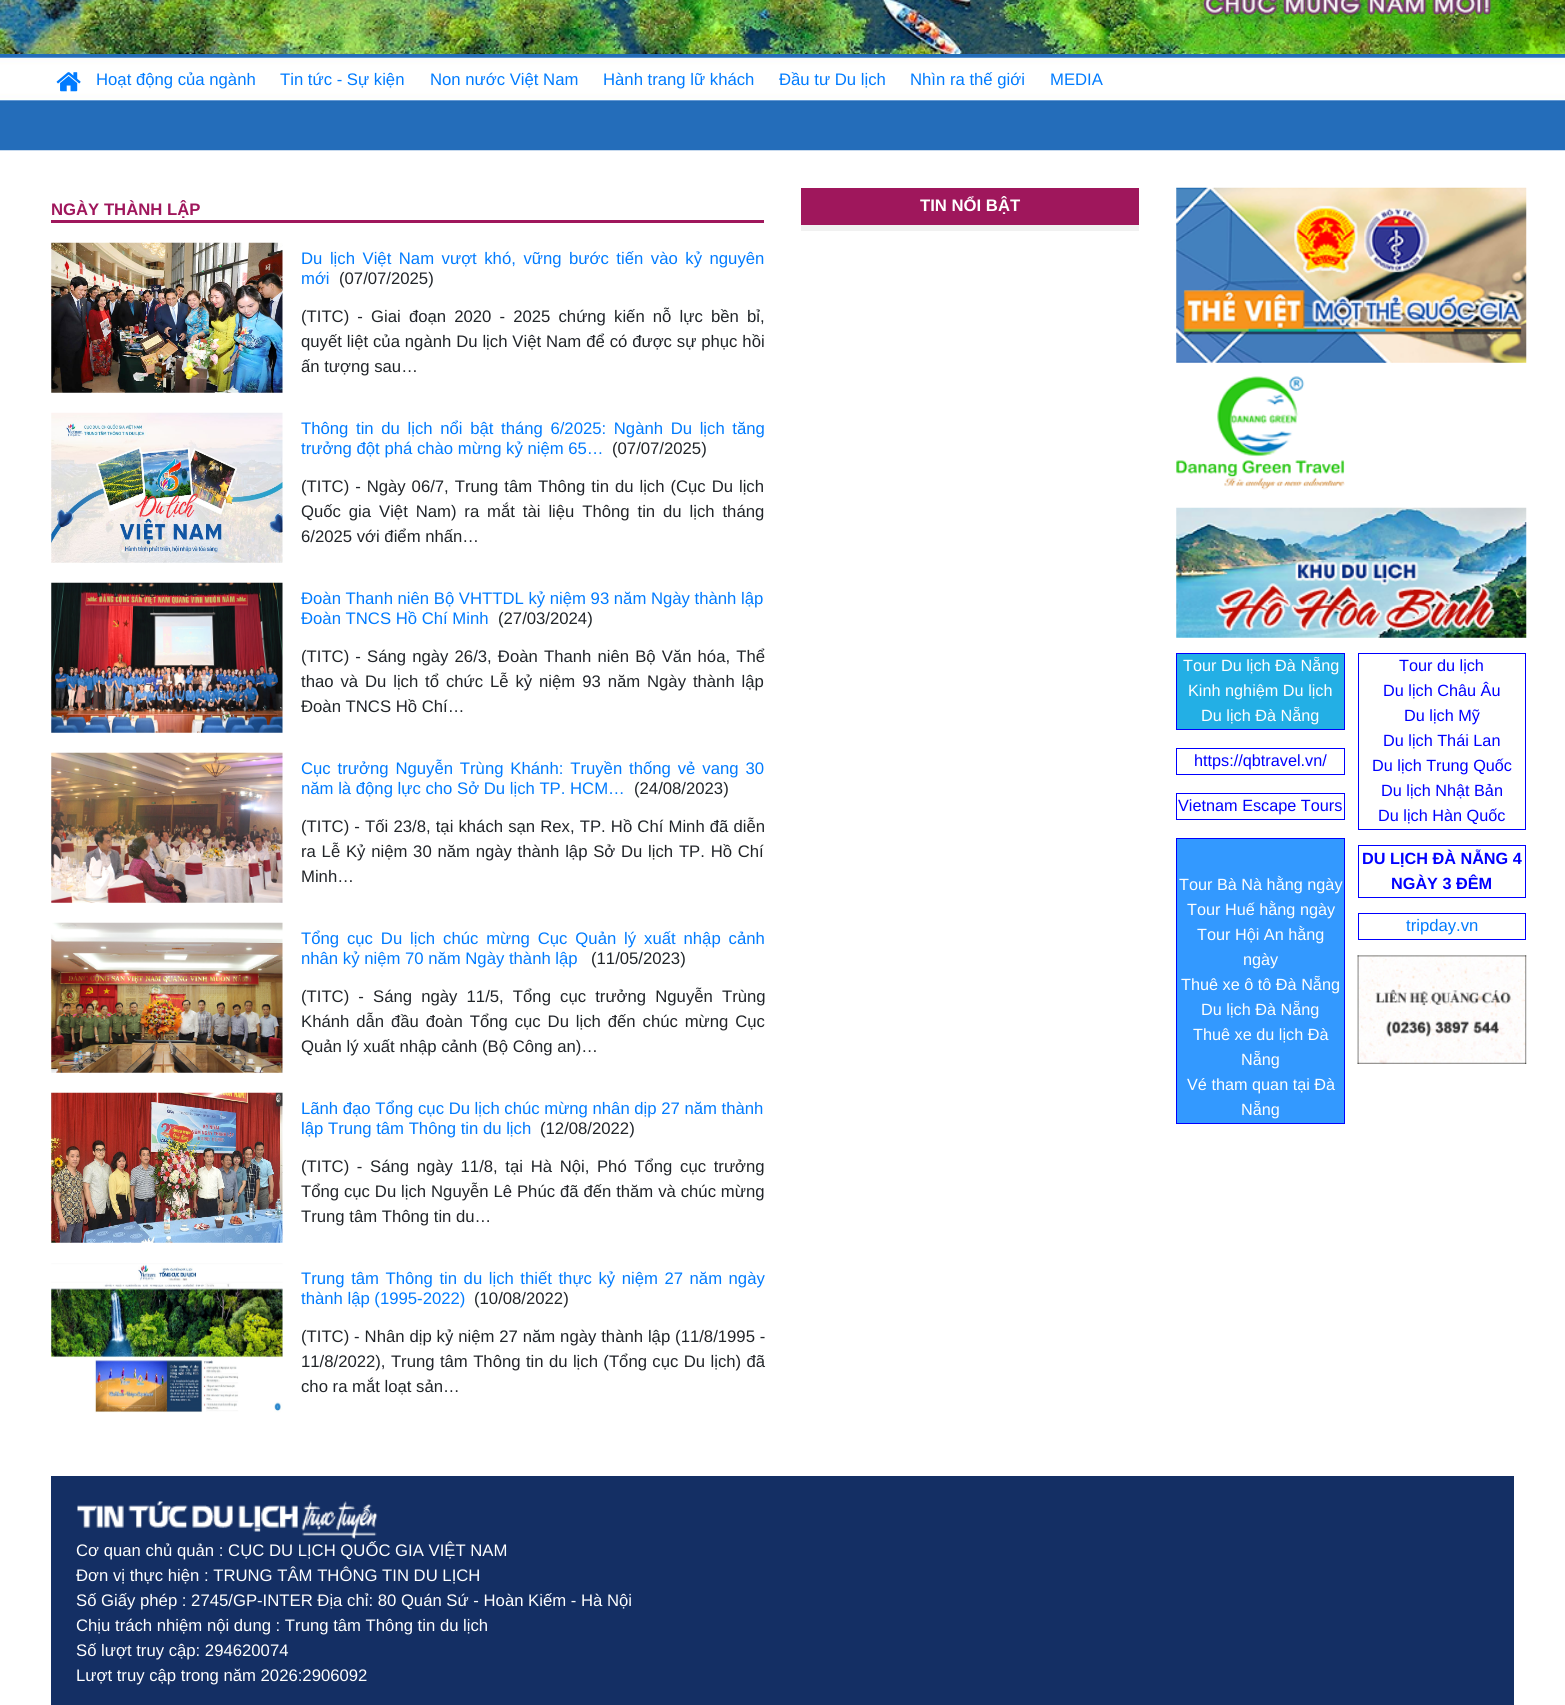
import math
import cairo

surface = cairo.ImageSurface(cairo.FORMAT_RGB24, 1565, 1705)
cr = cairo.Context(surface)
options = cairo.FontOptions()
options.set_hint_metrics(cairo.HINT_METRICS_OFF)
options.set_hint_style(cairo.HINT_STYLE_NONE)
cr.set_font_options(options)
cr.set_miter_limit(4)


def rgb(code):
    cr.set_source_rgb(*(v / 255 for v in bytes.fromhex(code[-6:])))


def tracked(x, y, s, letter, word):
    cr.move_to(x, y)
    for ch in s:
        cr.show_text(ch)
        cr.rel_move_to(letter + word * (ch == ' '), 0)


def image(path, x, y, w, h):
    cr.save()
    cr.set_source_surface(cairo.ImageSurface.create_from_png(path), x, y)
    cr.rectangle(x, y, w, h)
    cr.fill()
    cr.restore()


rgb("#ffffff")
cr.paint()
image("img/1.png", 0, 0, 1565, 54)
image("img/2.png", 1202, 0, 290, 16)
image("img/3.png", 0, 54, 1565, 97)
image("img/4.png", 56, 72, 25, 20)
rgb("#9f175c")
cr.rectangle(51, 220, 713, 3)
cr.fill()
image("img/5.png", 51, 242, 232, 151)
image("img/6.png", 51, 412, 232, 151)
image("img/7.png", 51, 582, 232, 151)
image("img/8.png", 51, 752, 232, 151)
image("img/9.png", 51, 922, 232, 151)
image("img/10.png", 51, 1092, 232, 151)
image("img/11.png", 51, 1263, 232, 150)
cr.rectangle(801, 188, 338, 37)
cr.fill()
rgb("#f1f1f1")
cr.rectangle(801, 225, 338, 6)
cr.fill()
image("img/12.png", 1176, 187, 351, 176)
image("img/13.png", 1176, 376, 169, 114)
image("img/14.png", 1176, 507, 351, 131)
rgb("#23afe5")
cr.rectangle(1176.5, 653.5, 168, 76)
cr.fill_preserve()
rgb("#0000ff")
cr.set_line_width(1)
cr.stroke()
cr.rectangle(1358.5, 653.5, 167, 176)
cr.stroke()
cr.rectangle(1176.5, 748.5, 168, 26)
cr.stroke()
cr.rectangle(1176.5, 793.5, 168, 26)
cr.stroke()
cr.rectangle(1358.5, 845.5, 167, 52)
cr.stroke()
rgb("#3399ff")
cr.rectangle(1176.5, 838.5, 168, 285)
cr.fill_preserve()
rgb("#0000ff")
cr.stroke()
cr.rectangle(1358.5, 913.5, 167, 26)
cr.stroke()
image("img/15.png", 1357, 955, 170, 109)
rgb("#142f64")
cr.rectangle(51, 1476, 1463, 229)
cr.fill()
image("img/16.png", 77, 1501, 301, 38)
cr.select_font_face("Liberation Sans")
cr.set_font_size(16.7)
rgb("#007bff")
for x, y, s in [
    (96, 85, "Hoạt động của ngành"),
    (280, 85, "Tin tức - Sự kiện"),
    (430, 85, "Non nước Việt Nam"),
    (603, 85, "Hành trang lữ khách"),
    (779, 85, "Ðầu tư Du lịch"),
    (910, 85, "Nhìn ra thế giới"),
    (1050, 85, "MEDIA"),
]:
    cr.move_to(x, y)
    cr.show_text(s)
cr.select_font_face("Liberation Sans", cairo.FONT_SLANT_NORMAL, cairo.FONT_WEIGHT_BOLD)
rgb("#9f175c")
cr.move_to(51, 215)
cr.show_text("NGÀY THÀNH LẬP")
cr.select_font_face("Liberation Sans")
rgb("#007bff")
tracked(301, 264, "Du lịch Việt Nam vượt khó, vững bước tiến vào kỷ nguyên", 0, 2.9)
cr.move_to(301, 284)
cr.show_text("mới")
rgb("#212529")
cr.move_to(339, 284)
cr.show_text("(07/07/2025)")
tracked(301, 322, "(TITC) - Giai đoạn 2020 - 2025 chứng kiến nỗ lực bền bỉ,", 0, 3.5)
tracked(301, 347, "quyết liệt của ngành Du lịch Việt Nam để có được sự phục hồi", 0, 0.25)
cr.move_to(301, 372)
cr.show_text("ấn tượng sau…")
rgb("#007bff")
tracked(301, 434, "Thông tin du lịch nổi bật tháng 6/2025: Ngành Du lịch tăng", 0, 3)
cr.move_to(301, 454)
cr.show_text("trưởng đột phá chào mừng kỷ niệm 65…")
rgb("#212529")
cr.move_to(612, 454)
cr.show_text("(07/07/2025)")
tracked(301, 492, "(TITC) - Ngày 06/7, Trung tâm Thông tin du lịch (Cục Du lịch", 0, 1.3)
tracked(301, 517, "Quốc gia Việt Nam) ra mắt tài liệu Thông tin du lịch tháng", 0, 3.25)
cr.move_to(301, 542)
cr.show_text("6/2025 với điểm nhấn…")
rgb("#007bff")
cr.move_to(301, 604)
cr.show_text("Đoàn Thanh niên Bộ VHTTDL kỷ niệm 93 năm Ngày thành lập")
cr.move_to(301, 624)
cr.show_text("Đoàn TNCS Hồ Chí Minh")
rgb("#212529")
cr.move_to(498, 624)
cr.show_text("(27/03/2024)")
tracked(301, 662, "(TITC) - Sáng ngày 26/3, Đoàn Thanh niên Bộ Văn hóa, Thể", 0, 1.5)
tracked(301, 687, "thao và Du lịch tổ chức Lễ kỷ niệm 93 năm Ngày thành lập", 0, 2.25)
cr.move_to(301, 712)
cr.show_text("Đoàn TNCS Hồ Chí…")
rgb("#007bff")
tracked(301, 774, "Cục trưởng Nguyễn Trùng Khánh: Truyền thống vẻ vang 30", 0, 2.25)
cr.move_to(301, 794)
cr.show_text("năm là động lực cho Sở Du lịch TP. HCM…")
rgb("#212529")
cr.move_to(634, 794)
cr.show_text("(24/08/2023)")
tracked(301, 832, "(TITC) - Tối 23/8, tại khách sạn Rex, TP. Hồ Chí Minh đã diễn", 0, 0.5)
tracked(301, 857, "ra Lễ Kỷ niệm 30 năm ngày thành lập Sở Du lịch TP. Hồ Chí", 0, 1.1)
cr.move_to(301, 882)
cr.show_text("Minh…")
rgb("#007bff")
tracked(301, 944, "Tổng cục Du lịch chúc mừng Cục Quản lý xuất nhập cảnh", 0, 3.25)
cr.move_to(301, 964)
cr.show_text("nhân kỷ niệm 70 năm Ngày thành lập")
rgb("#212529")
cr.move_to(591, 964)
cr.show_text("(11/05/2023)")
tracked(301, 1002, "(TITC) - Sáng ngày 11/5, Tổng cục trưởng Nguyễn Trùng", 0, 4.5)
tracked(301, 1027, "Khánh dẫn đầu đoàn Tổng cục Du lịch đến chúc mừng Cục", 0, 2.25)
cr.move_to(301, 1052)
cr.show_text("Quản lý xuất nhập cảnh (Bộ Công an)…")
rgb("#007bff")
cr.move_to(301, 1114)
cr.show_text("Lãnh đạo Tổng cục Du lịch chúc mừng nhân dịp 27 năm thành")
cr.move_to(301, 1134)
cr.show_text("lập Trung tâm Thông tin du lịch")
rgb("#212529")
cr.move_to(540, 1134)
cr.show_text("(12/08/2022)")
tracked(301, 1172, "(TITC) - Sáng ngày 11/8, tại Hà Nội, Phó Tổng cục trưởng", 0, 3)
tracked(301, 1197, "Tổng cục Du lịch Nguyễn Lê Phúc đã đến thăm và chúc mừng", 0, 0.25)
cr.move_to(301, 1222)
cr.show_text("Trung tâm Thông tin du…")
rgb("#007bff")
tracked(301, 1284, "Trung tâm Thông tin du lịch thiết thực kỷ niệm 27 năm ngày", 0, 1.9)
cr.move_to(301, 1304)
cr.show_text("thành lập (1995-2022)")
rgb("#212529")
cr.move_to(474, 1304)
cr.show_text("(10/08/2022)")
tracked(301, 1342, "(TITC) - Nhân dịp kỷ niệm 27 năm ngày thành lập (11/8/1995 -", 0, 0.25)
tracked(301, 1367, "11/8/2022), Trung tâm Thông tin du lịch (Tổng cục Du lịch) đã", 0, 0.75)
cr.move_to(301, 1392)
cr.show_text("cho ra mắt loạt sản…")
cr.select_font_face("Liberation Sans", cairo.FONT_SLANT_NORMAL, cairo.FONT_WEIGHT_BOLD)
rgb("#ffffff")
cr.move_to(920, 211)
cr.show_text("TIN NỔI BẬT")
cr.select_font_face("Liberation Sans")
cr.set_font_size(16.25)
for x, y, s in [
    (1183, 671, "Tour Du lịch Đà Nẵng"),
    (1188, 696, "Kinh nghiệm Du lịch"),
    (1201, 721, "Du lịch Đà Nẵng"),
]:
    cr.move_to(x, y)
    cr.show_text(s)
rgb("#0000ff")
for x, y, s in [
    (1399, 671, "Tour du lịch"),
    (1383, 696, "Du lịch Châu Âu"),
    (1404, 721, "Du lịch Mỹ"),
    (1383, 746, "Du lịch Thái Lan"),
    (1372, 771, "Du lịch Trung Quốc"),
    (1381, 796, "Du lịch Nhật Bản"),
    (1378, 821, "Du lịch Hàn Quốc"),
    (1194, 766, "https://qbtravel.vn/"),
    (1178, 811, "Vietnam Escape Tours"),
]:
    cr.move_to(x, y)
    cr.show_text(s)
cr.select_font_face("Liberation Sans", cairo.FONT_SLANT_NORMAL, cairo.FONT_WEIGHT_BOLD)
cr.move_to(1362, 864)
cr.show_text("DU LỊCH ĐÀ NẴNG 4")
cr.move_to(1391, 889)
cr.show_text("NGÀY 3 ĐÊM")
cr.select_font_face("Liberation Sans")
rgb("#ffffff")
for x, y, s in [
    (1179, 890, "Tour Bà Nà hằng ngày"),
    (1187, 915, "Tour Huế hằng ngày"),
    (1197, 940, "Tour Hội An hằng"),
    (1243, 965, "ngày"),
    (1181, 990, "Thuê xe ô tô Đà Nẵng"),
    (1201, 1015, "Du lịch Đà Nẵng"),
    (1193, 1040, "Thuê xe du lịch Đà"),
    (1241, 1065, "Nẵng"),
    (1187, 1090, "Vé tham quan tại Đà"),
    (1241, 1115, "Nẵng"),
]:
    cr.move_to(x, y)
    cr.show_text(s)
cr.set_font_size(16.7)
rgb("#007bff")
cr.move_to(1406, 931)
cr.show_text("tripday.vn")
rgb("#ffffff")
for x, y, s in [
    (76, 1556, "Cơ quan chủ quản : CỤC DU LỊCH QUỐC GIA VIỆT NAM"),
    (76, 1581, "Đơn vị thực hiện : TRUNG TÂM THÔNG TIN DU LỊCH"),
    (76, 1606, "Số Giấy phép : 2745/GP-INTER Địa chỉ: 80 Quán Sứ - Hoàn Kiếm - Hà Nội"),
    (76, 1631, "Chịu trách nhiệm nội dung : Trung tâm Thông tin du lịch"),
    (76, 1656, "Số lượt truy cập: 294620074"),
    (76, 1681, "Lượt truy cập trong năm 2026:2906092"),
]:
    cr.move_to(x, y)
    cr.show_text(s)
surface.write_to_png("page.png")
